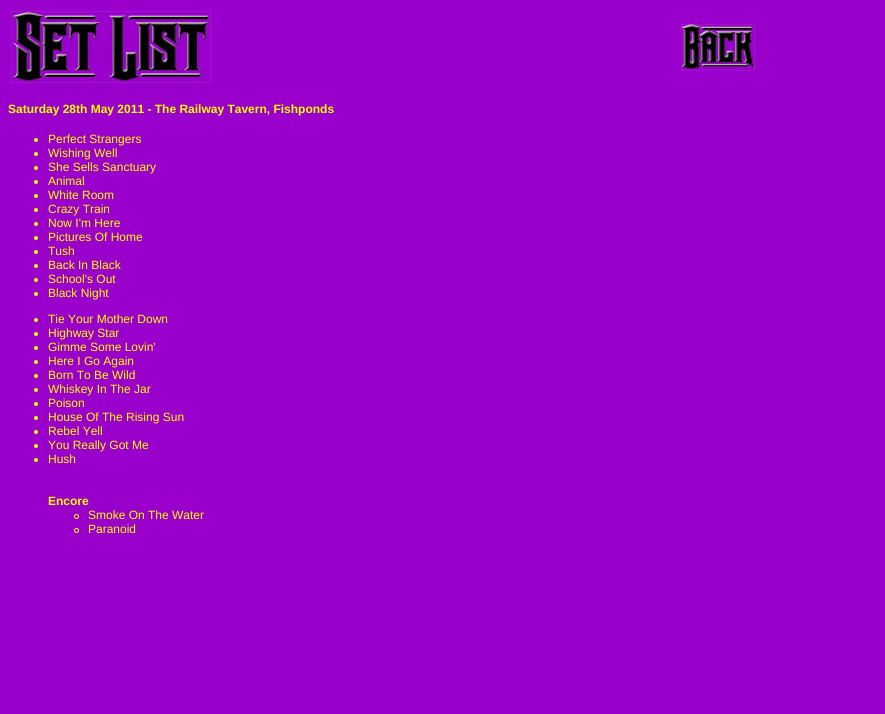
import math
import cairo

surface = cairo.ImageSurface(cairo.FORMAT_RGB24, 885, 714)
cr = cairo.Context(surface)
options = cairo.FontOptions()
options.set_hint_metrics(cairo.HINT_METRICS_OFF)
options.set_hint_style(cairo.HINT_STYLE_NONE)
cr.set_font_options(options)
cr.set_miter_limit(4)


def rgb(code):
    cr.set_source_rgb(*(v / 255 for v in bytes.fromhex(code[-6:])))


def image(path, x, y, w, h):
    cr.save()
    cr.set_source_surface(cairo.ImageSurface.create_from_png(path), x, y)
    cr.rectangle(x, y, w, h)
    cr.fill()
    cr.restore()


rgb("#9900cc")
cr.paint()
image("img/1.png", 11, 11, 200, 72)
image("img/2.png", 681, 24, 74, 47)
rgb("#ffff00")
cr.arc(36, 140, 2, 0, 2 * math.pi)
cr.fill()
cr.arc(36, 154, 2, 0, 2 * math.pi)
cr.fill()
cr.arc(36, 168, 2, 0, 2 * math.pi)
cr.fill()
cr.arc(36, 182, 2, 0, 2 * math.pi)
cr.fill()
cr.arc(36, 196, 2, 0, 2 * math.pi)
cr.fill()
cr.arc(36, 210, 2, 0, 2 * math.pi)
cr.fill()
cr.arc(36, 224, 2, 0, 2 * math.pi)
cr.fill()
cr.arc(36, 238, 2, 0, 2 * math.pi)
cr.fill()
cr.arc(36, 252, 2, 0, 2 * math.pi)
cr.fill()
cr.arc(36, 266, 2, 0, 2 * math.pi)
cr.fill()
cr.arc(36, 280, 2, 0, 2 * math.pi)
cr.fill()
cr.arc(36, 294, 2, 0, 2 * math.pi)
cr.fill()
cr.arc(36, 320, 2, 0, 2 * math.pi)
cr.fill()
cr.arc(36, 334, 2, 0, 2 * math.pi)
cr.fill()
cr.arc(36, 348, 2, 0, 2 * math.pi)
cr.fill()
cr.arc(36, 362, 2, 0, 2 * math.pi)
cr.fill()
cr.arc(36, 376, 2, 0, 2 * math.pi)
cr.fill()
cr.arc(36, 390, 2, 0, 2 * math.pi)
cr.fill()
cr.arc(36, 404, 2, 0, 2 * math.pi)
cr.fill()
cr.arc(36, 418, 2, 0, 2 * math.pi)
cr.fill()
cr.arc(36, 432, 2, 0, 2 * math.pi)
cr.fill()
cr.arc(36, 446, 2, 0, 2 * math.pi)
cr.fill()
cr.arc(36, 460, 2, 0, 2 * math.pi)
cr.fill()
cr.arc(76.5, 516.5, 2, 0, 2 * math.pi)
cr.set_line_width(1)
cr.stroke()
cr.arc(76.5, 530.5, 2, 0, 2 * math.pi)
cr.stroke()
cr.select_font_face("Liberation Sans", cairo.FONT_SLANT_NORMAL, cairo.FONT_WEIGHT_BOLD)
cr.set_font_size(12)
cr.move_to(8, 113)
cr.show_text("Saturday 28th May 2011 - The Railway Tavern, Fishponds")
cr.select_font_face("Liberation Sans")
for x, y, s in [
    (48, 143, "Perfect Strangers"),
    (48, 157, "Wishing Well"),
    (48, 171, "She Sells Sanctuary"),
    (48, 185, "Animal"),
    (48, 199, "White Room"),
    (48, 213, "Crazy Train"),
    (48, 227, "Now I'm Here"),
    (48, 241, "Pictures Of Home"),
    (48, 255, "Tush"),
    (48, 269, "Back In Black"),
    (48, 283, "School's Out"),
    (48, 297, "Black Night"),
    (48, 323, "Tie Your Mother Down"),
    (48, 337, "Highway Star"),
    (48, 351, "Gimme Some Lovin'"),
    (48, 365, "Here I Go Again"),
    (48, 379, "Born To Be Wild"),
    (48, 393, "Whiskey In The Jar"),
    (48, 407, "Poison"),
    (48, 421, "House Of The Rising Sun"),
    (48, 435, "Rebel Yell"),
    (48, 449, "You Really Got Me"),
    (48, 463, "Hush"),
]:
    cr.move_to(x, y)
    cr.show_text(s)
cr.select_font_face("Liberation Sans", cairo.FONT_SLANT_NORMAL, cairo.FONT_WEIGHT_BOLD)
cr.move_to(48, 505)
cr.show_text("Encore")
cr.select_font_face("Liberation Sans")
cr.move_to(88, 519)
cr.show_text("Smoke On The Water")
cr.move_to(88, 533)
cr.show_text("Paranoid")
surface.write_to_png("page.png")
